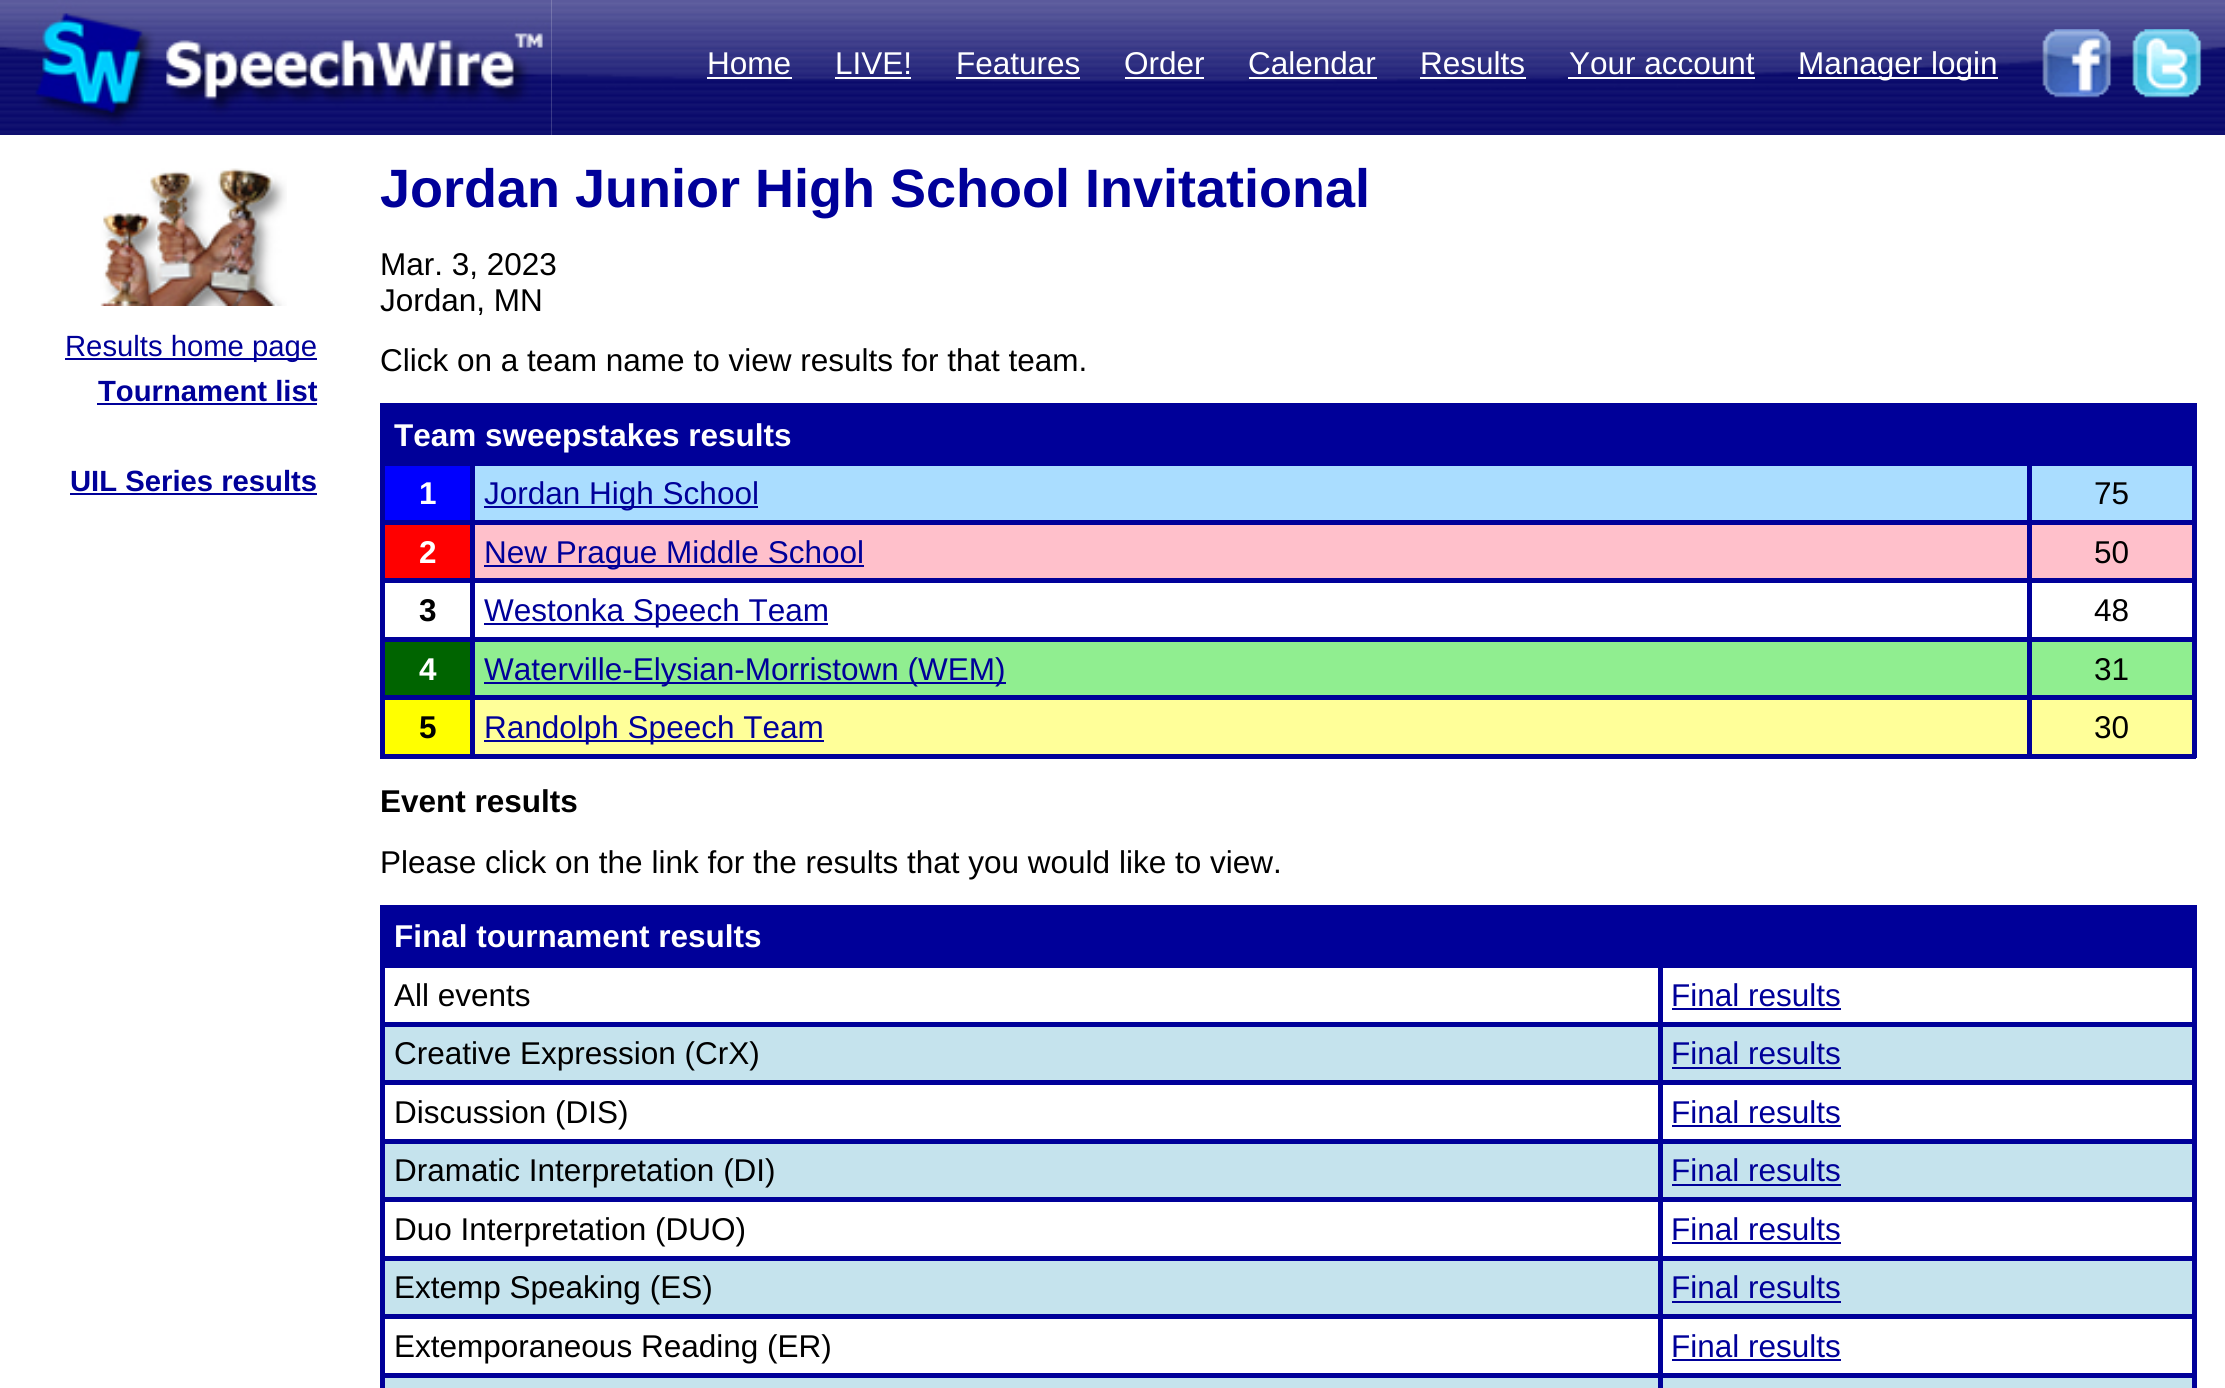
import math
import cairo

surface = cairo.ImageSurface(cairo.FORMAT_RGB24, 2225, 1388)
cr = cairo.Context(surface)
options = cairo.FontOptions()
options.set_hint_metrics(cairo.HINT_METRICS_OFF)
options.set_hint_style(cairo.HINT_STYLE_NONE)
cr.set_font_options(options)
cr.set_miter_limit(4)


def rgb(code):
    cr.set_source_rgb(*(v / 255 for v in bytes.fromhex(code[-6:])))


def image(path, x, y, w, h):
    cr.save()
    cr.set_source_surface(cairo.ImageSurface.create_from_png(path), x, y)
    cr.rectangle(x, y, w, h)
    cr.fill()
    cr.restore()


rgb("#ffffff")
cr.paint()
image("img/2.png", 551, 0, 1674, 135)
image("img/1.png", 0, 0, 552, 135)
for x, y, w, h, color in [
    (707, 77, 85, 2, "#ffffff"),
    (835, 77, 76, 2, "#ffffff"),
    (956, 77, 124, 2, "#ffffff"),
    (1125, 77, 79, 2, "#ffffff"),
    (1249, 77, 128, 2, "#ffffff"),
    (1420, 77, 106, 2, "#ffffff"),
    (1568, 77, 187, 2, "#ffffff"),
    (1798, 77, 200, 2, "#ffffff"),
]:
    rgb(color)
    cr.rectangle(x, y, w, h)
    cr.fill()
image("img/3.png", 2042, 29, 70, 69)
image("img/4.png", 2132, 29, 70, 69)
image("img/5.png", 100, 168, 187, 138)
for x, y, w, h, color in [
    (65, 358, 252, 2, "#000099"),
    (97, 403, 220, 2, "#000099"),
    (70, 493, 247, 2, "#000099"),
    (380, 403, 1816, 5, "#000099"),
    (2192, 403, 5, 355, "#000099"),
    (380, 754, 1816, 5, "#000099"),
    (380, 403, 5, 355, "#000099"),
    (385, 408, 1807, 53, "#000099"),
    (385, 466, 85, 54, "#0000ff"),
    (2027, 461, 169, 5, "#000099"),
    (2027, 520, 169, 5, "#000099"),
    (2027, 578, 169, 5, "#000099"),
    (2027, 637, 169, 5, "#000099"),
    (2027, 695, 169, 5, "#000099"),
    (2027, 695, 5, 63, "#000099"),
    (470, 695, 1562, 5, "#000099"),
    (2027, 637, 5, 63, "#000099"),
    (470, 637, 1562, 5, "#000099"),
    (2027, 578, 5, 63, "#000099"),
    (470, 578, 1562, 5, "#000099"),
    (2027, 520, 5, 63, "#000099"),
    (470, 520, 1562, 5, "#000099"),
    (2027, 461, 5, 63, "#000099"),
    (470, 461, 1562, 5, "#000099"),
    (470, 695, 5, 63, "#000099"),
    (380, 695, 95, 5, "#000099"),
    (470, 637, 5, 63, "#000099"),
    (380, 637, 95, 5, "#000099"),
    (470, 578, 5, 63, "#000099"),
    (380, 578, 95, 5, "#000099"),
    (470, 520, 5, 63, "#000099"),
    (380, 520, 95, 5, "#000099"),
    (470, 461, 5, 63, "#000099"),
    (380, 461, 95, 5, "#000099"),
    (475, 466, 1552, 54, "#aaddff"),
    (484, 506, 274, 2, "#000099"),
    (2032, 466, 160, 54, "#aaddff"),
    (385, 525, 85, 53, "#ff0000"),
    (475, 525, 1552, 53, "#ffc0cb"),
    (484, 565, 380, 2, "#000099"),
    (2032, 525, 160, 53, "#ffc0cb"),
    (484, 623, 344, 2, "#000099"),
    (385, 642, 85, 53, "#006400"),
    (475, 642, 1552, 53, "#90ee90"),
    (484, 682, 522, 2, "#000099"),
    (2032, 642, 160, 53, "#90ee90"),
    (385, 700, 85, 54, "#ffff00"),
    (475, 700, 1552, 54, "#ffff99"),
    (484, 740, 340, 2, "#000099"),
    (2032, 700, 160, 54, "#ffff99"),
    (380, 905, 1816, 5, "#000099"),
    (2192, 905, 5, 483, "#000099"),
    (380, 905, 5, 483, "#000099"),
    (385, 910, 1807, 53, "#000099"),
    (1658, 963, 538, 5, "#000099"),
    (1658, 1022, 538, 5, "#000099"),
    (385, 1027, 1807, 53, "#c5e3ed"),
    (1658, 1080, 538, 5, "#000099"),
    (1658, 1139, 538, 5, "#000099"),
    (385, 1144, 1807, 53, "#c5e3ed"),
    (1658, 1197, 538, 5, "#000099"),
    (1658, 1256, 538, 5, "#000099"),
    (385, 1261, 1807, 53, "#c5e3ed"),
    (1658, 1314, 538, 5, "#000099"),
    (1658, 1373, 538, 5, "#000099"),
    (385, 1378, 1807, 10, "#c5e3ed"),
    (1658, 1373, 5, 15, "#000099"),
    (380, 1373, 1283, 5, "#000099"),
    (1658, 1314, 5, 63, "#000099"),
    (380, 1314, 1283, 5, "#000099"),
    (1658, 1256, 5, 63, "#000099"),
    (380, 1256, 1283, 5, "#000099"),
    (1658, 1197, 5, 63, "#000099"),
    (380, 1197, 1283, 5, "#000099"),
    (1658, 1139, 5, 63, "#000099"),
    (380, 1139, 1283, 5, "#000099"),
    (1658, 1080, 5, 63, "#000099"),
    (380, 1080, 1283, 5, "#000099"),
    (1658, 1022, 5, 63, "#000099"),
    (380, 1022, 1283, 5, "#000099"),
    (1658, 963, 5, 63, "#000099"),
    (380, 963, 1283, 5, "#000099"),
    (1672, 1008, 169, 2, "#000099"),
    (1672, 1067, 169, 2, "#000099"),
    (1672, 1125, 169, 2, "#000099"),
    (1672, 1184, 169, 2, "#000099"),
    (1672, 1242, 169, 2, "#000099"),
    (1672, 1301, 169, 2, "#000099"),
    (1672, 1359, 169, 2, "#000099"),
]:
    rgb(color)
    cr.rectangle(x, y, w, h)
    cr.fill()
cr.select_font_face("Liberation Sans")
cr.set_font_size(31.5)
rgb("#ffffff")
for x, y, s in [
    (707, 74, "Home"),
    (835, 74, "LIVE!"),
    (956, 74, "Features"),
    (1124, 74, "Order"),
    (1248, 74, "Calendar"),
    (1420, 74, "Results"),
    (1569, 74, "Your account"),
    (1798, 74, "Manager login"),
]:
    cr.move_to(x, y)
    cr.show_text(s)
cr.set_font_size(29.25)
rgb("#000099")
cr.move_to(65, 356)
cr.show_text("Results home page")
cr.select_font_face("Liberation Sans", cairo.FONT_SLANT_NORMAL, cairo.FONT_WEIGHT_BOLD)
cr.move_to(98, 401)
cr.show_text("Tournament list")
cr.move_to(70, 491)
cr.show_text("UIL Series results")
cr.set_font_size(54)
cr.move_to(380, 207)
cr.show_text("Jordan Junior High School Invitational")
cr.select_font_face("Liberation Sans")
cr.set_font_size(31.5)
rgb("#000000")
for x, y, s in [
    (380, 275, "Mar. 3, 2023"),
    (380, 311, "Jordan, MN"),
    (380, 371, "Click on a team name to view results for that team."),
]:
    cr.move_to(x, y)
    cr.show_text(s)
cr.select_font_face("Liberation Sans", cairo.FONT_SLANT_NORMAL, cairo.FONT_WEIGHT_BOLD)
rgb("#ffffff")
cr.move_to(394, 446)
cr.show_text("Team sweepstakes results")
cr.move_to(419, 504)
cr.show_text("1")
cr.select_font_face("Liberation Sans")
rgb("#000099")
cr.move_to(484, 504)
cr.show_text("Jordan High School")
rgb("#000000")
cr.move_to(2094, 504)
cr.show_text("75")
cr.select_font_face("Liberation Sans", cairo.FONT_SLANT_NORMAL, cairo.FONT_WEIGHT_BOLD)
rgb("#ffffff")
cr.move_to(419, 563)
cr.show_text("2")
cr.select_font_face("Liberation Sans")
rgb("#000099")
cr.move_to(484, 563)
cr.show_text("New Prague Middle School")
rgb("#000000")
cr.move_to(2094, 563)
cr.show_text("50")
cr.select_font_face("Liberation Sans", cairo.FONT_SLANT_NORMAL, cairo.FONT_WEIGHT_BOLD)
cr.move_to(419, 621)
cr.show_text("3")
cr.select_font_face("Liberation Sans")
rgb("#000099")
cr.move_to(484, 621)
cr.show_text("Westonka Speech Team")
rgb("#000000")
cr.move_to(2094, 621)
cr.show_text("48")
cr.select_font_face("Liberation Sans", cairo.FONT_SLANT_NORMAL, cairo.FONT_WEIGHT_BOLD)
rgb("#ffffff")
cr.move_to(419, 680)
cr.show_text("4")
cr.select_font_face("Liberation Sans")
rgb("#000099")
cr.move_to(484, 680)
cr.show_text("Waterville-Elysian-Morristown (WEM)")
rgb("#000000")
cr.move_to(2094, 680)
cr.show_text("31")
cr.select_font_face("Liberation Sans", cairo.FONT_SLANT_NORMAL, cairo.FONT_WEIGHT_BOLD)
cr.move_to(419, 738)
cr.show_text("5")
cr.select_font_face("Liberation Sans")
rgb("#000099")
cr.move_to(484, 738)
cr.show_text("Randolph Speech Team")
rgb("#000000")
cr.move_to(2094, 738)
cr.show_text("30")
cr.select_font_face("Liberation Sans", cairo.FONT_SLANT_NORMAL, cairo.FONT_WEIGHT_BOLD)
cr.move_to(380, 812)
cr.show_text("Event results")
cr.select_font_face("Liberation Sans")
cr.move_to(380, 873)
cr.show_text("Please click on the link for the results that you would like to view.")
cr.select_font_face("Liberation Sans", cairo.FONT_SLANT_NORMAL, cairo.FONT_WEIGHT_BOLD)
rgb("#ffffff")
cr.move_to(394, 947)
cr.show_text("Final tournament results")
cr.select_font_face("Liberation Sans")
rgb("#000000")
cr.move_to(394, 1006)
cr.show_text("All events")
rgb("#000099")
cr.move_to(1671, 1006)
cr.show_text("Final results")
rgb("#000000")
cr.move_to(394, 1064)
cr.show_text("Creative Expression (CrX)")
rgb("#000099")
cr.move_to(1671, 1064)
cr.show_text("Final results")
rgb("#000000")
cr.move_to(394, 1123)
cr.show_text("Discussion (DIS)")
rgb("#000099")
cr.move_to(1671, 1123)
cr.show_text("Final results")
rgb("#000000")
cr.move_to(394, 1181)
cr.show_text("Dramatic Interpretation (DI)")
rgb("#000099")
cr.move_to(1671, 1181)
cr.show_text("Final results")
rgb("#000000")
cr.move_to(394, 1240)
cr.show_text("Duo Interpretation (DUO)")
rgb("#000099")
cr.move_to(1671, 1240)
cr.show_text("Final results")
rgb("#000000")
cr.move_to(394, 1298)
cr.show_text("Extemp Speaking (ES)")
rgb("#000099")
cr.move_to(1671, 1298)
cr.show_text("Final results")
rgb("#000000")
cr.move_to(394, 1357)
cr.show_text("Extemporaneous Reading (ER)")
rgb("#000099")
cr.move_to(1671, 1357)
cr.show_text("Final results")
surface.write_to_png("page.png")
